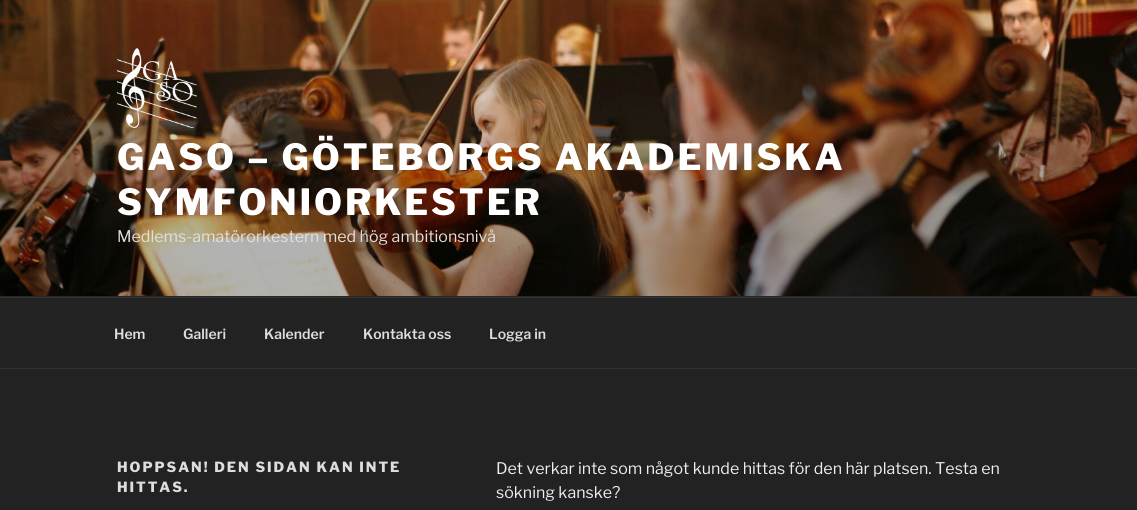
import math
import cairo

surface = cairo.ImageSurface(cairo.FORMAT_RGB24, 1137, 510)
cr = cairo.Context(surface)
options = cairo.FontOptions()
options.set_hint_metrics(cairo.HINT_METRICS_OFF)
options.set_hint_style(cairo.HINT_STYLE_NONE)
cr.set_font_options(options)
cr.set_miter_limit(4)


def rgb(code):
    cr.set_source_rgb(*(v / 255 for v in bytes.fromhex(code[-6:])))


def tracked(x, y, s, letter, word):
    cr.move_to(x, y)
    for ch in s:
        cr.show_text(ch)
        cr.rel_move_to(letter + word * (ch == ' '), 0)


def image(path, x, y, w, h):
    cr.save()
    cr.set_source_surface(cairo.ImageSurface.create_from_png(path), x, y)
    cr.rectangle(x, y, w, h)
    cr.fill()
    cr.restore()


rgb("#222222")
cr.paint()
rgb("#262626")
cr.rectangle(0, 296, 1137, 1)
cr.fill()
image("img/1.png", 0, 0, 1137, 296)
image("img/2.png", 117, 48, 80, 80)
rgb("#333333")
cr.rectangle(0, 297, 1137, 1)
cr.fill()
cr.rectangle(0, 368, 1137, 1)
cr.fill()
cr.select_font_face("Libre Franklin Thin")
cr.set_font_size(36)
rgb("#ffffff")
tracked(117, 170, "GASO – GÖTEBORGS AKADEMISKA", 2.9, 0)
tracked(117, 215, "SYMFONIORKESTER", 2.9, 0)
cr.select_font_face("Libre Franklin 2 Thin")
cr.set_font_size(16)
rgb("#e4dfdb")
cr.move_to(117, 242)
cr.show_text("Medlems-amatörorkestern med hög ambitionsnivå")
cr.select_font_face("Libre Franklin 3 Thin")
cr.set_font_size(14)
rgb("#dddddd")
for x, y, s in [
    (114, 339, "Hem"),
    (183, 339, "Galleri"),
    (264, 339, "Kalender"),
    (363, 339, "Kontakta oss"),
    (489, 339, "Logga in"),
]:
    cr.move_to(x, y)
    cr.show_text(s)
cr.select_font_face("Libre Franklin Thin")
tracked(117, 472, "HOPPSAN! DEN SIDAN KAN INTE", 1.95, 0)
tracked(117, 492, "HITTAS.", 1.95, 0)
cr.select_font_face("Libre Franklin 2 Thin")
cr.set_font_size(16)
rgb("#eeeeee")
cr.move_to(496, 474)
cr.show_text("Det verkar inte som något kunde hittas för den här platsen. Testa en")
cr.move_to(496, 498)
cr.show_text("sökning kanske?")
surface.write_to_png("page.png")
